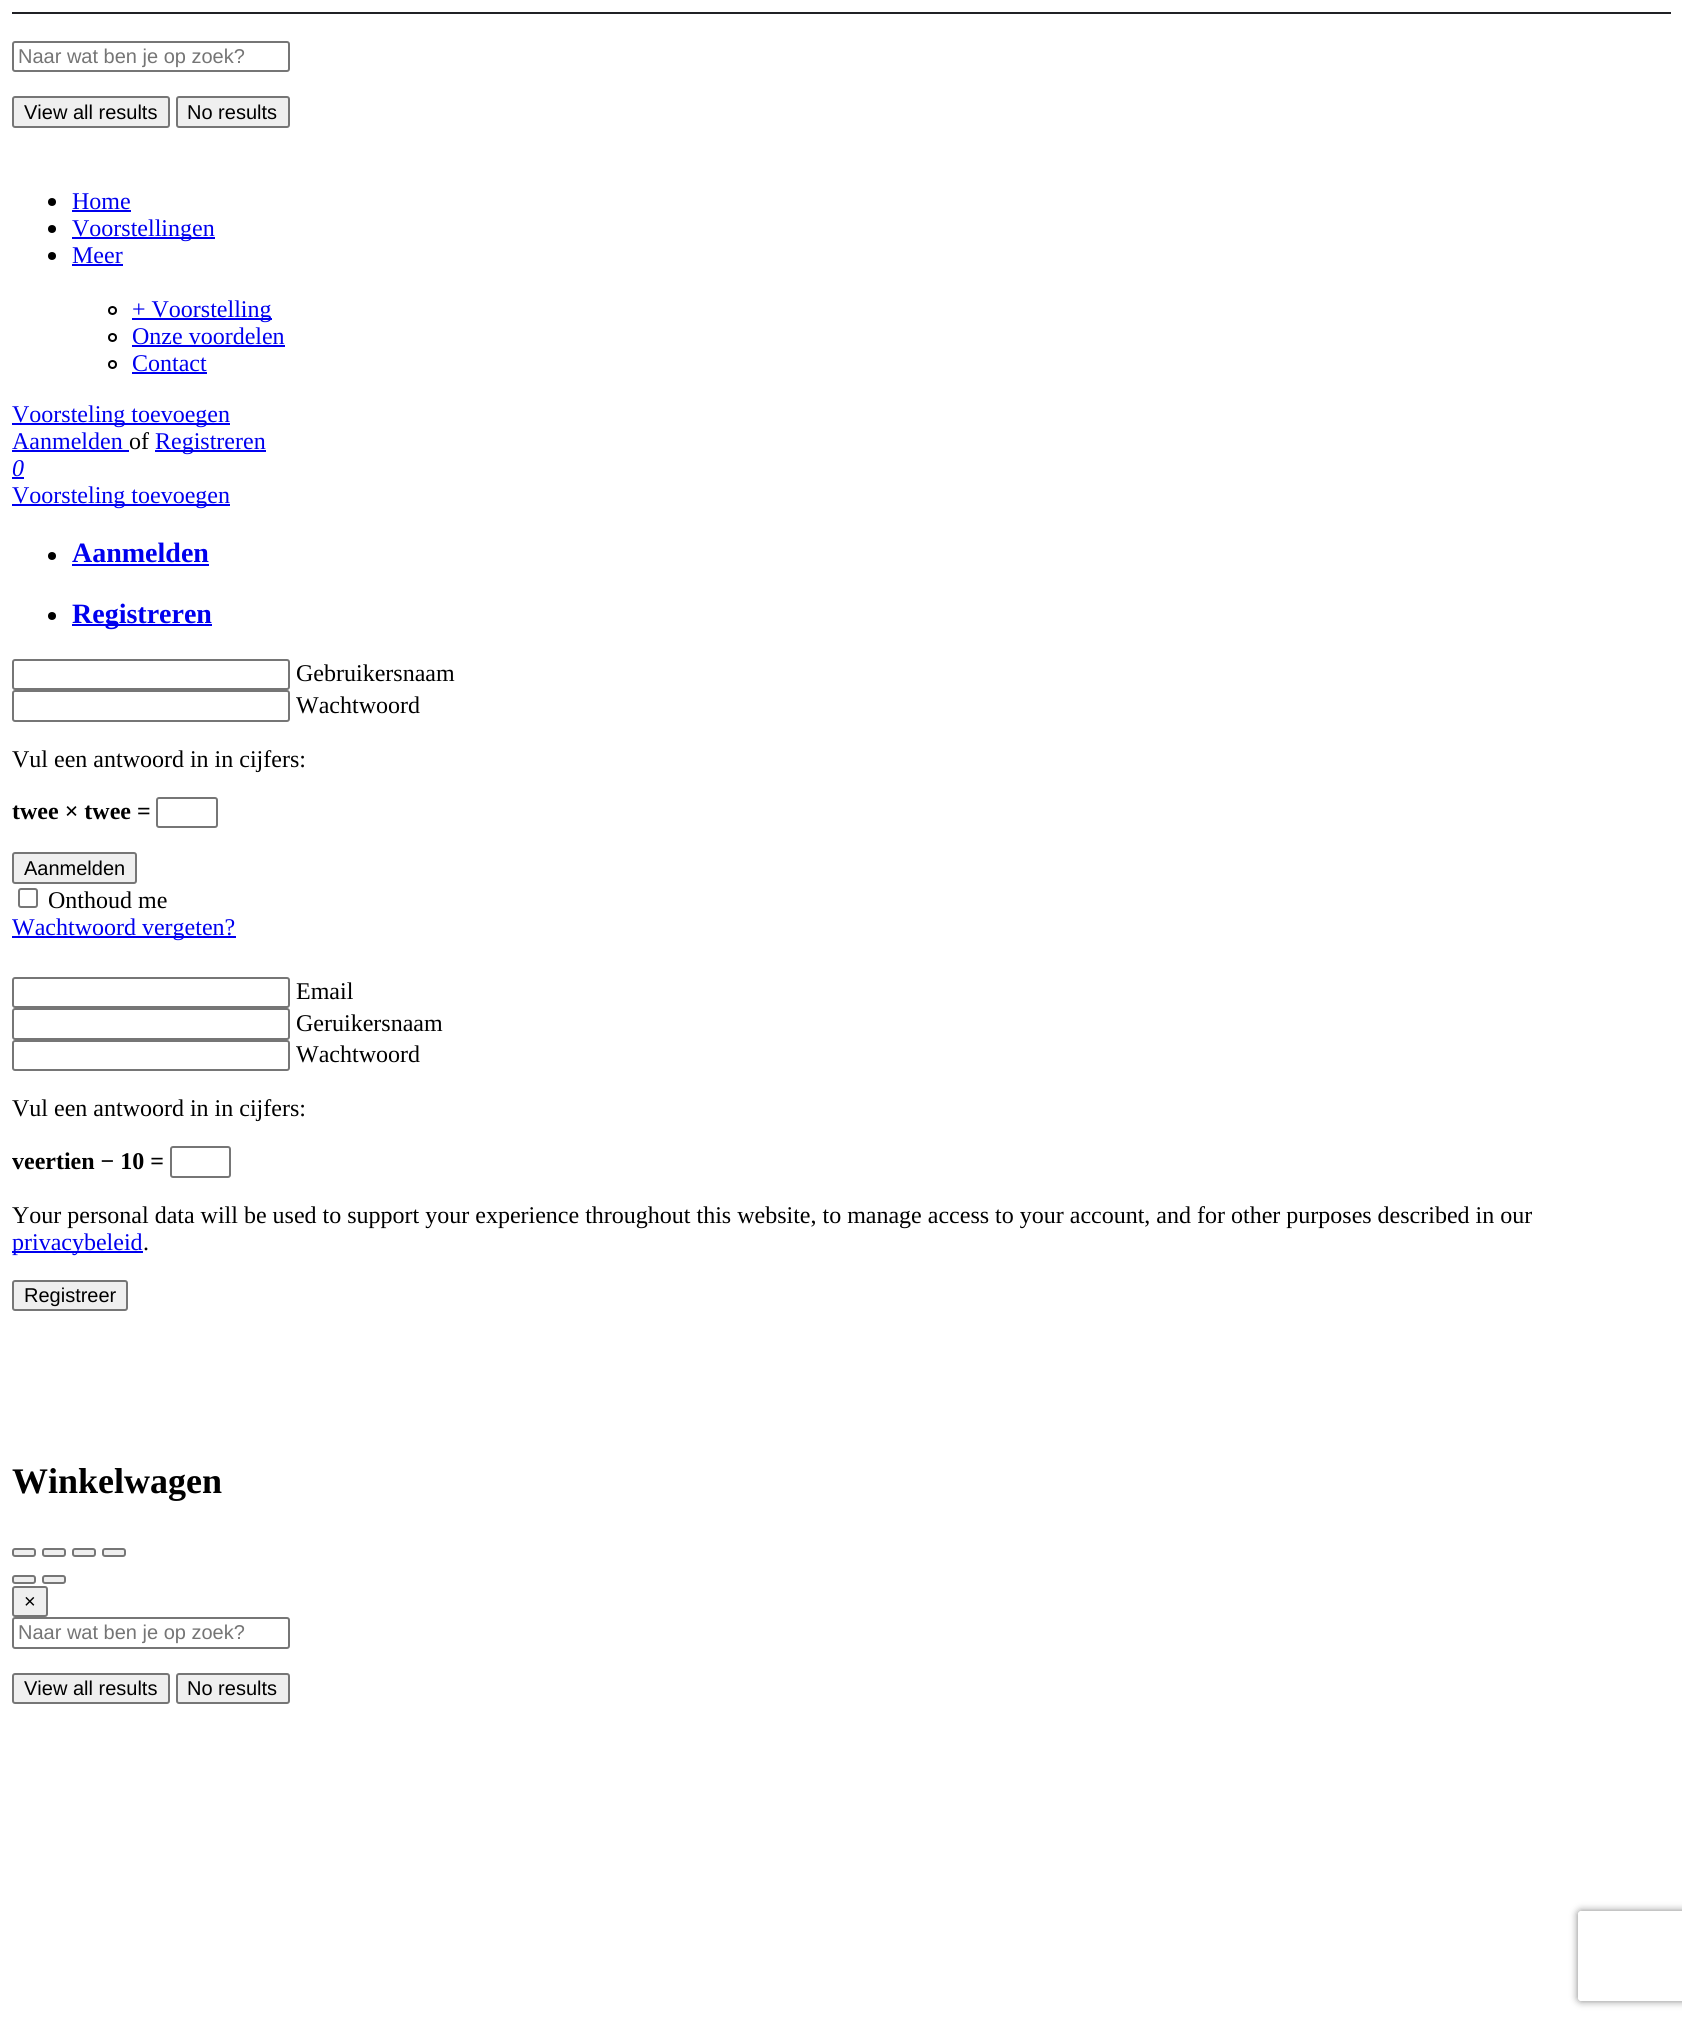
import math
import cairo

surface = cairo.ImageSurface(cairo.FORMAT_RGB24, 1682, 2022)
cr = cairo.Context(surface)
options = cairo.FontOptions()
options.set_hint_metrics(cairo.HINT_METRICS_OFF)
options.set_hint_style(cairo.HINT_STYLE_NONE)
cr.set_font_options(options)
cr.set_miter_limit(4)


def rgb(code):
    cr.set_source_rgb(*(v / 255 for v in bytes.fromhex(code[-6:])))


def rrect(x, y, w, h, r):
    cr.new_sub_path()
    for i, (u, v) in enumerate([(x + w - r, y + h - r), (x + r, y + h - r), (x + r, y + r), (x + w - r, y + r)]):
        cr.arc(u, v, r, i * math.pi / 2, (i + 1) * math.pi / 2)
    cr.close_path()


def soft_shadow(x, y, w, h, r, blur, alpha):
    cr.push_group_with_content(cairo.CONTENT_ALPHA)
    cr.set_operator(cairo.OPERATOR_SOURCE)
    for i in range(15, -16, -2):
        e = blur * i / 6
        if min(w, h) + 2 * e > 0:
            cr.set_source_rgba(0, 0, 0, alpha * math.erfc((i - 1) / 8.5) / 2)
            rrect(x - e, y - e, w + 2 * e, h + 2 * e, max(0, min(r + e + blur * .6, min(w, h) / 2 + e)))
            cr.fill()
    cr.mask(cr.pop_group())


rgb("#ffffff")
cr.paint()
rgb("#202125")
cr.rectangle(12, 12, 1659, 2)
cr.fill()
rrect(13, 42, 276, 29, 2)
rgb("#767676")
cr.stroke()
rgb("#efefef")
rrect(13, 97, 156, 30, 2)
cr.fill_preserve()
rgb("#767676")
cr.stroke()
rgb("#efefef")
rrect(177, 97, 112, 30, 2)
cr.fill_preserve()
rgb("#767676")
cr.stroke()
rgb("#000000")
cr.arc(52, 202, 4, 0, 2 * math.pi)
cr.fill()
rgb("#0000ee")
cr.rectangle(72, 210, 59, 2)
cr.fill()
rgb("#000000")
cr.arc(52, 229, 4, 0, 2 * math.pi)
cr.fill()
rgb("#0000ee")
cr.rectangle(72, 237, 143, 2)
cr.fill()
rgb("#000000")
cr.arc(52, 256, 4, 0, 2 * math.pi)
cr.fill()
rgb("#0000ee")
cr.rectangle(72, 264, 51, 2)
cr.fill()
cr.arc(112.5, 310.5, 3.5, 0, 2 * math.pi)
rgb("#000000")
cr.stroke()
rgb("#0000ee")
cr.rectangle(132, 318, 140, 2)
cr.fill()
cr.arc(112.5, 337.5, 3.5, 0, 2 * math.pi)
rgb("#000000")
cr.stroke()
rgb("#0000ee")
cr.rectangle(132, 345, 153, 2)
cr.fill()
cr.arc(112.5, 364.5, 3.5, 0, 2 * math.pi)
rgb("#000000")
cr.stroke()
for x, y, w, h, color in [
    (132, 372, 75, 2, "#0000ee"),
    (12, 423, 218, 2, "#0000ee"),
    (12, 450, 117, 2, "#0000ee"),
    (155, 450, 111, 2, "#0000ee"),
    (12, 477, 12, 2, "#0000ee"),
    (12, 504, 218, 2, "#0000ee"),
]:
    rgb(color)
    cr.rectangle(x, y, w, h)
    cr.fill()
rgb("#000000")
cr.arc(52, 556, 4, 0, 2 * math.pi)
cr.fill()
rgb("#0000ee")
cr.rectangle(72, 564, 137, 2)
cr.fill()
rgb("#000000")
cr.arc(52, 616, 4, 0, 2 * math.pi)
cr.fill()
rgb("#0000ee")
cr.rectangle(72, 624, 140, 2)
cr.fill()
rrect(13, 660, 276, 29, 2)
rgb("#767676")
cr.stroke()
rrect(13, 691, 276, 30, 2)
cr.stroke()
rrect(157, 798, 60, 29, 2)
cr.stroke()
rgb("#efefef")
rrect(13, 853, 123, 30, 2)
cr.fill_preserve()
rgb("#767676")
cr.stroke()
rrect(19, 889, 18, 18, 2)
cr.stroke()
rgb("#0000ee")
cr.rectangle(12, 936, 224, 2)
cr.fill()
rrect(13, 978, 276, 29, 2)
rgb("#767676")
cr.stroke()
rrect(13, 1009, 276, 30, 2)
cr.stroke()
rrect(13, 1041, 276, 29, 2)
cr.stroke()
rrect(171, 1147, 59, 30, 2)
cr.stroke()
rgb("#0000ee")
cr.rectangle(12, 1251, 131, 2)
cr.fill()
rgb("#efefef")
rrect(13, 1281, 114, 29, 2)
cr.fill_preserve()
rgb("#767676")
cr.stroke()
rgb("#efefef")
rrect(13, 1549, 22, 7, 2)
cr.fill_preserve()
rgb("#767676")
cr.stroke()
rgb("#efefef")
rrect(43, 1549, 22, 7, 2)
cr.fill_preserve()
rgb("#767676")
cr.stroke()
rgb("#efefef")
rrect(73, 1549, 22, 7, 2)
cr.fill_preserve()
rgb("#767676")
cr.stroke()
rgb("#efefef")
rrect(103, 1549, 22, 7, 2)
cr.fill_preserve()
rgb("#767676")
cr.stroke()
rgb("#efefef")
rrect(13, 1576, 22, 7, 2)
cr.fill_preserve()
rgb("#767676")
cr.stroke()
rgb("#efefef")
rrect(43, 1576, 22, 7, 2)
cr.fill_preserve()
rgb("#767676")
cr.stroke()
rgb("#efefef")
rrect(13, 1587, 34, 29, 2)
cr.fill_preserve()
rgb("#767676")
cr.stroke()
rrect(13, 1618, 276, 30, 2)
cr.stroke()
rgb("#efefef")
rrect(13, 1674, 156, 29, 2)
cr.fill_preserve()
rgb("#767676")
cr.stroke()
rgb("#efefef")
rrect(177, 1674, 112, 29, 2)
cr.fill_preserve()
rgb("#767676")
cr.stroke()
cr.save()
cr.set_fill_rule(cairo.FILL_RULE_EVEN_ODD)
cr.new_path()
cr.move_to(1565, 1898)
cr.line_to(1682, 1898)
cr.line_to(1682, 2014)
cr.line_to(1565, 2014)
cr.close_path()
cr.move_to(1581, 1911)
cr.line_to(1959, 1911)
cr.curve_to(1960.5, 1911, 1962, 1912.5, 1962, 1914)
cr.line_to(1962, 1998)
cr.curve_to(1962, 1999.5, 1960.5, 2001, 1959, 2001)
cr.line_to(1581, 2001)
cr.curve_to(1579.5, 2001, 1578, 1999.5, 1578, 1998)
cr.line_to(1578, 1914)
cr.curve_to(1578, 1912.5, 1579.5, 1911, 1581, 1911)
cr.close_path()
cr.clip()
rgb("#808080")
soft_shadow(1578, 1911, 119, 90, 3, 4, 1)
cr.restore()
cr.select_font_face("Liberation Sans")
cr.set_font_size(20)
rgb("#757575")
cr.move_to(18, 63)
cr.show_text("Naar wat ben je op zoek?")
rgb("#000000")
cr.move_to(24, 119)
cr.show_text("View all results")
cr.move_to(187, 119)
cr.show_text("No results")
cr.select_font_face("Liberation Serif")
cr.set_font_size(24)
rgb("#0000ee")
for x, y, s in [
    (72, 209, "Home"),
    (72, 236, "Voorstellingen"),
    (72, 263, "Meer"),
    (132, 317, "+ Voorstelling"),
    (132, 344, "Onze voordelen"),
    (132, 371, "Contact"),
    (12, 422, "Voorsteling toevoegen"),
    (12, 449, "Aanmelden"),
]:
    cr.move_to(x, y)
    cr.show_text(s)
rgb("#000000")
cr.move_to(129, 449)
cr.show_text("of")
rgb("#0000ee")
cr.move_to(155, 449)
cr.show_text("Registreren")
cr.select_font_face("Liberation Serif", cairo.FONT_SLANT_ITALIC)
cr.move_to(12, 476)
cr.show_text("0")
cr.select_font_face("Liberation Serif")
cr.move_to(12, 503)
cr.show_text("Voorsteling toevoegen")
cr.select_font_face("Liberation Serif", cairo.FONT_SLANT_NORMAL, cairo.FONT_WEIGHT_BOLD)
cr.set_font_size(28)
cr.move_to(72, 562)
cr.show_text("Aanmelden")
cr.move_to(72, 623)
cr.show_text("Registreren")
cr.select_font_face("Liberation Serif")
cr.set_font_size(24)
rgb("#000000")
for x, y, s in [
    (296, 681, "Gebruikersnaam"),
    (296, 713, "Wachtwoord"),
    (12, 767, "Vul een antwoord in in cijfers:"),
]:
    cr.move_to(x, y)
    cr.show_text(s)
cr.select_font_face("Liberation Serif", cairo.FONT_SLANT_NORMAL, cairo.FONT_WEIGHT_BOLD)
cr.move_to(12, 819)
cr.show_text("twee × twee =")
cr.select_font_face("Liberation Sans")
cr.set_font_size(20)
cr.move_to(24, 875)
cr.show_text("Aanmelden")
cr.select_font_face("Liberation Serif")
cr.set_font_size(24)
cr.move_to(48, 908)
cr.show_text("Onthoud me")
rgb("#0000ee")
cr.move_to(12, 935)
cr.show_text("Wachtwoord vergeten?")
rgb("#000000")
for x, y, s in [
    (296, 999, "Email"),
    (296, 1031, "Geruikersnaam"),
    (296, 1062, "Wachtwoord"),
    (12, 1116, "Vul een antwoord in in cijfers:"),
]:
    cr.move_to(x, y)
    cr.show_text(s)
cr.select_font_face("Liberation Serif", cairo.FONT_SLANT_NORMAL, cairo.FONT_WEIGHT_BOLD)
cr.move_to(12, 1169)
cr.show_text("veertien − 10 =")
cr.select_font_face("Liberation Serif")
cr.move_to(12, 1223)
cr.show_text("Your personal data will be used to support your experience throughout this website, to manage access to your account, and for other purposes described in our")
rgb("#0000ee")
cr.move_to(12, 1250)
cr.show_text("privacybeleid")
rgb("#000000")
cr.move_to(143, 1250)
cr.show_text(".")
cr.select_font_face("Liberation Sans")
cr.set_font_size(20)
cr.move_to(24, 1302)
cr.show_text("Registreer")
cr.select_font_face("Liberation Serif", cairo.FONT_SLANT_NORMAL, cairo.FONT_WEIGHT_BOLD)
cr.set_font_size(36)
cr.move_to(12, 1493)
cr.show_text("Winkelwagen")
cr.select_font_face("Liberation Sans")
cr.set_font_size(20)
cr.move_to(24, 1608)
cr.show_text("×")
rgb("#757575")
cr.move_to(18, 1639)
cr.show_text("Naar wat ben je op zoek?")
rgb("#000000")
cr.move_to(24, 1695)
cr.show_text("View all results")
cr.move_to(187, 1695)
cr.show_text("No results")
surface.write_to_png("page.png")
